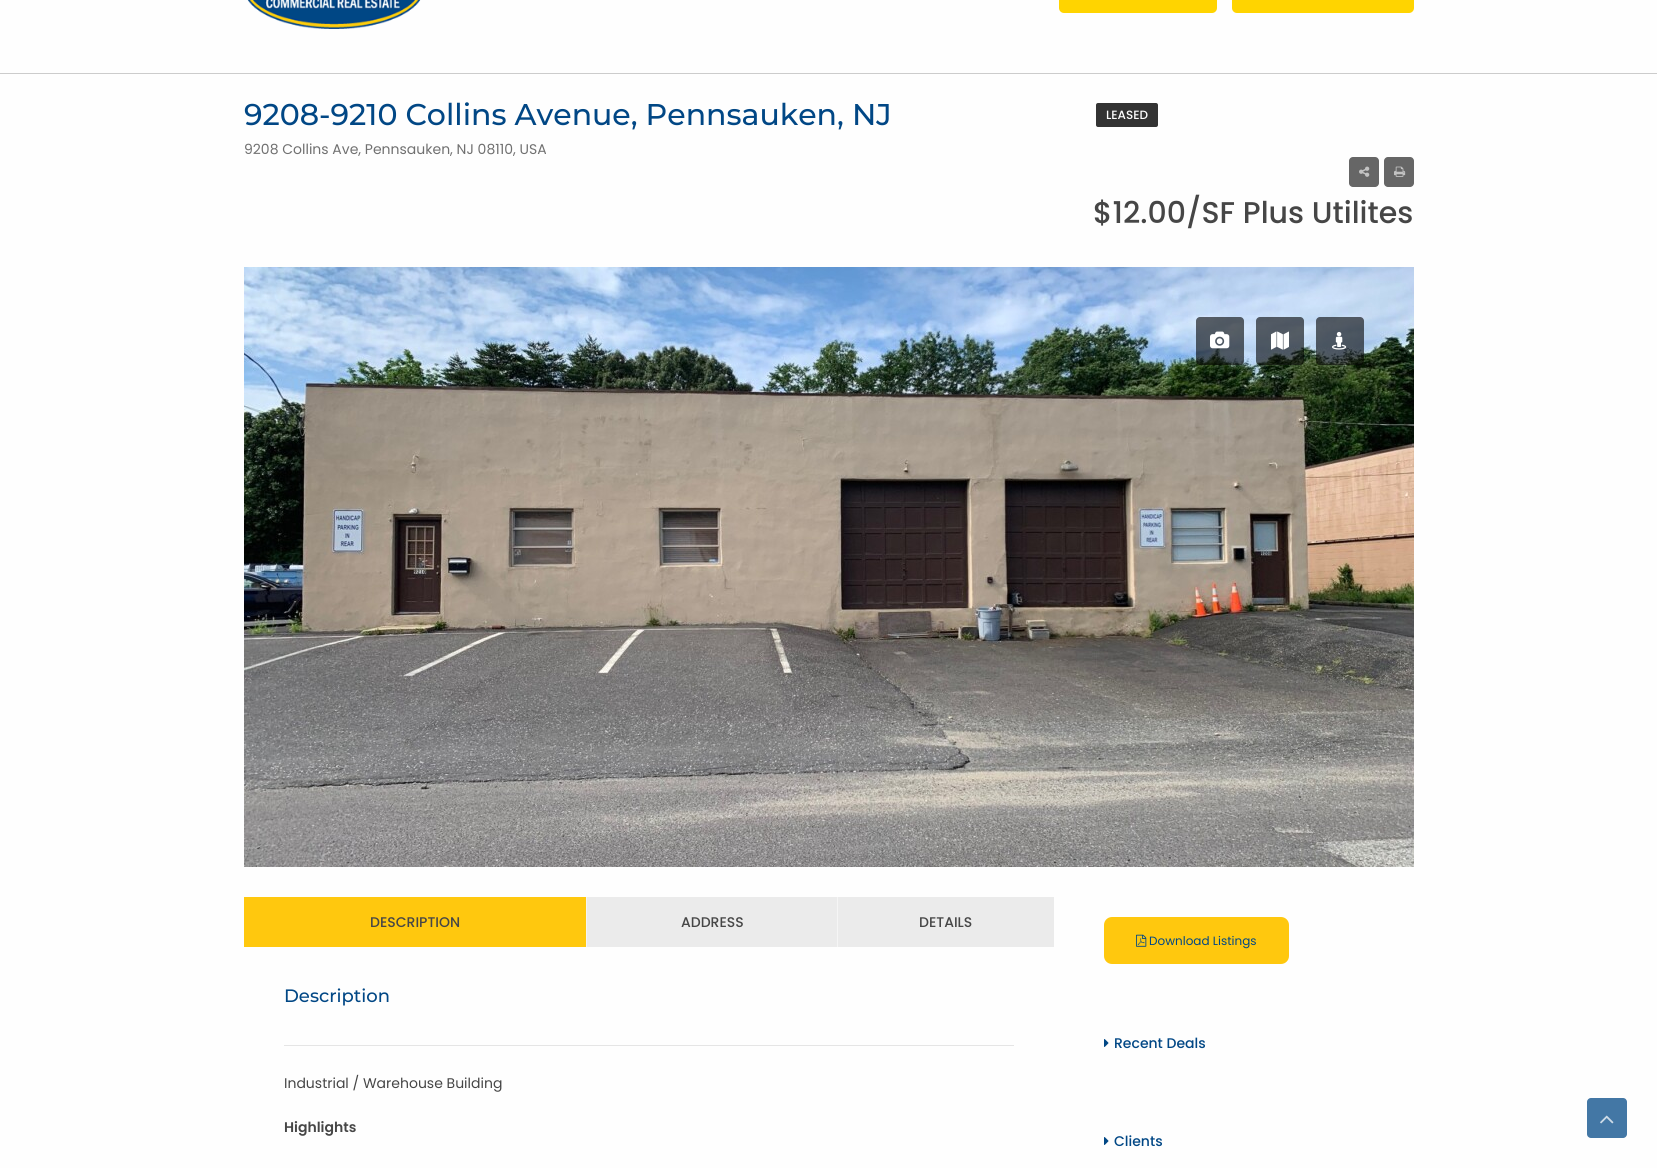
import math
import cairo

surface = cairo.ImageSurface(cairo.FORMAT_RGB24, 1657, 1168)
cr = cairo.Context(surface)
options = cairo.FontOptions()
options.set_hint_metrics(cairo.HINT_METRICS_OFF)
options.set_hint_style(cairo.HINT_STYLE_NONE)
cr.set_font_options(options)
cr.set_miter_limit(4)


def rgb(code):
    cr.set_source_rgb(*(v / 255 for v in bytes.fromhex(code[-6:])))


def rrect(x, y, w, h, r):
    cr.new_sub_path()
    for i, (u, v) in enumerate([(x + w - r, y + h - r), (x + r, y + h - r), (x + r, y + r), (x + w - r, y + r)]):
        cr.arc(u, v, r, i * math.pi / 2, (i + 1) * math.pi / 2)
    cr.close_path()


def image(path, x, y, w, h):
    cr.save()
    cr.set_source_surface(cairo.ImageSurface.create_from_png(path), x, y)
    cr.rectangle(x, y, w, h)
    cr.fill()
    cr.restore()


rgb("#fefefe")
cr.paint()
rgb("#cccccc")
cr.rectangle(0, 73, 1657, 1)
cr.fill()
image("img/1.png", 247, 0, 174, 29)
rgb("#ffd400")
rrect(1059, -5, 158, 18, 5)
cr.fill()
rrect(1232, -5, 182, 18, 5)
cr.fill()
rgb("#333333")
rrect(1096, 103, 62, 24, 2)
cr.fill()
rgb("#666666")
rrect(1349, 157, 30, 30, 4)
cr.fill()
image("img/2.png", 1359, 166, 11, 11)
rrect(1384, 157, 30, 30, 4)
cr.fill()
image("img/3.png", 1394, 166, 12, 11)
image("img/4.png", 244, 267, 1170, 600)
cr.set_source_rgba(0, 0, 0, 0.6)
rrect(1196, 317, 48, 48, 4)
cr.fill()
image("img/5.png", 1210, 331, 20, 18)
rrect(1256, 317, 48, 48, 4)
cr.fill()
image("img/6.png", 1271, 331, 18, 19)
rrect(1316, 317, 48, 48, 4)
cr.fill()
image("img/7.png", 1332, 331, 15, 19)
for x, y, w, h, color in [
    (244, 897, 342, 50, "#ffc80e"),
    (586, 897, 1, 50, "#f5f5f5"),
    (587, 897, 250, 50, "#ebebeb"),
    (837, 897, 1, 50, "#f5f5f5"),
    (838, 897, 216, 50, "#ebebeb"),
    (284, 1045, 730, 1, "#e5e5e5"),
]:
    rgb(color)
    cr.rectangle(x, y, w, h)
    cr.fill()
rgb("#ffc80e")
rrect(1104, 917, 185, 47, 8)
cr.fill()
image("img/8.png", 1136, 934, 11, 13)
image("img/9.png", 1104, 1039, 5, 8)
image("img/9.png", 1104, 1137, 5, 8)
rgb("#4377a5")
rrect(1587, 1098, 40, 40, 4)
cr.fill()
image("img/10.png", 1600, 1115, 14, 9)
cr.select_font_face("Montserrat Thin")
cr.set_font_size(30)
rgb("#014785")
cr.move_to(244, 125)
cr.show_text("9208-9210 Collins Avenue, Pennsauken, NJ")
cr.select_font_face("Poppins Medium")
cr.set_font_size(12)
rgb("#ffffff")
cr.move_to(1106, 119)
cr.show_text("LEASED")
cr.select_font_face("Poppins")
cr.set_font_size(14)
rgb("#707070")
cr.move_to(244, 154)
cr.show_text("9208 Collins Ave, Pennsauken, NJ 08110, USA")
cr.select_font_face("Poppins Medium")
cr.set_font_size(30)
rgb("#464646")
cr.move_to(1093, 223)
cr.show_text("$12.00/SF Plus Utilites")
cr.set_font_size(14)
for x, y, s in [
    (370, 927, "DESCRIPTION"),
    (681, 927, "ADDRESS"),
    (919, 927, "DETAILS"),
]:
    cr.move_to(x, y)
    cr.show_text(s)
cr.select_font_face("Montserrat Thin")
cr.set_font_size(18)
rgb("#014785")
cr.move_to(284, 1002)
cr.show_text("Description")
cr.select_font_face("Poppins")
cr.set_font_size(14)
rgb("#464646")
cr.move_to(284, 1088)
cr.show_text("Industrial / Warehouse Building")
cr.select_font_face("Poppins SemiBold")
cr.move_to(284, 1132)
cr.show_text("Highlights")
cr.select_font_face("Poppins")
cr.set_font_size(12)
rgb("#014785")
cr.move_to(1149, 945)
cr.show_text("Download Listings")
cr.select_font_face("Poppins Medium")
cr.set_font_size(14)
cr.move_to(1114, 1048)
cr.show_text("Recent Deals")
cr.move_to(1114, 1146)
cr.show_text("Clients")
surface.write_to_png("page.png")
